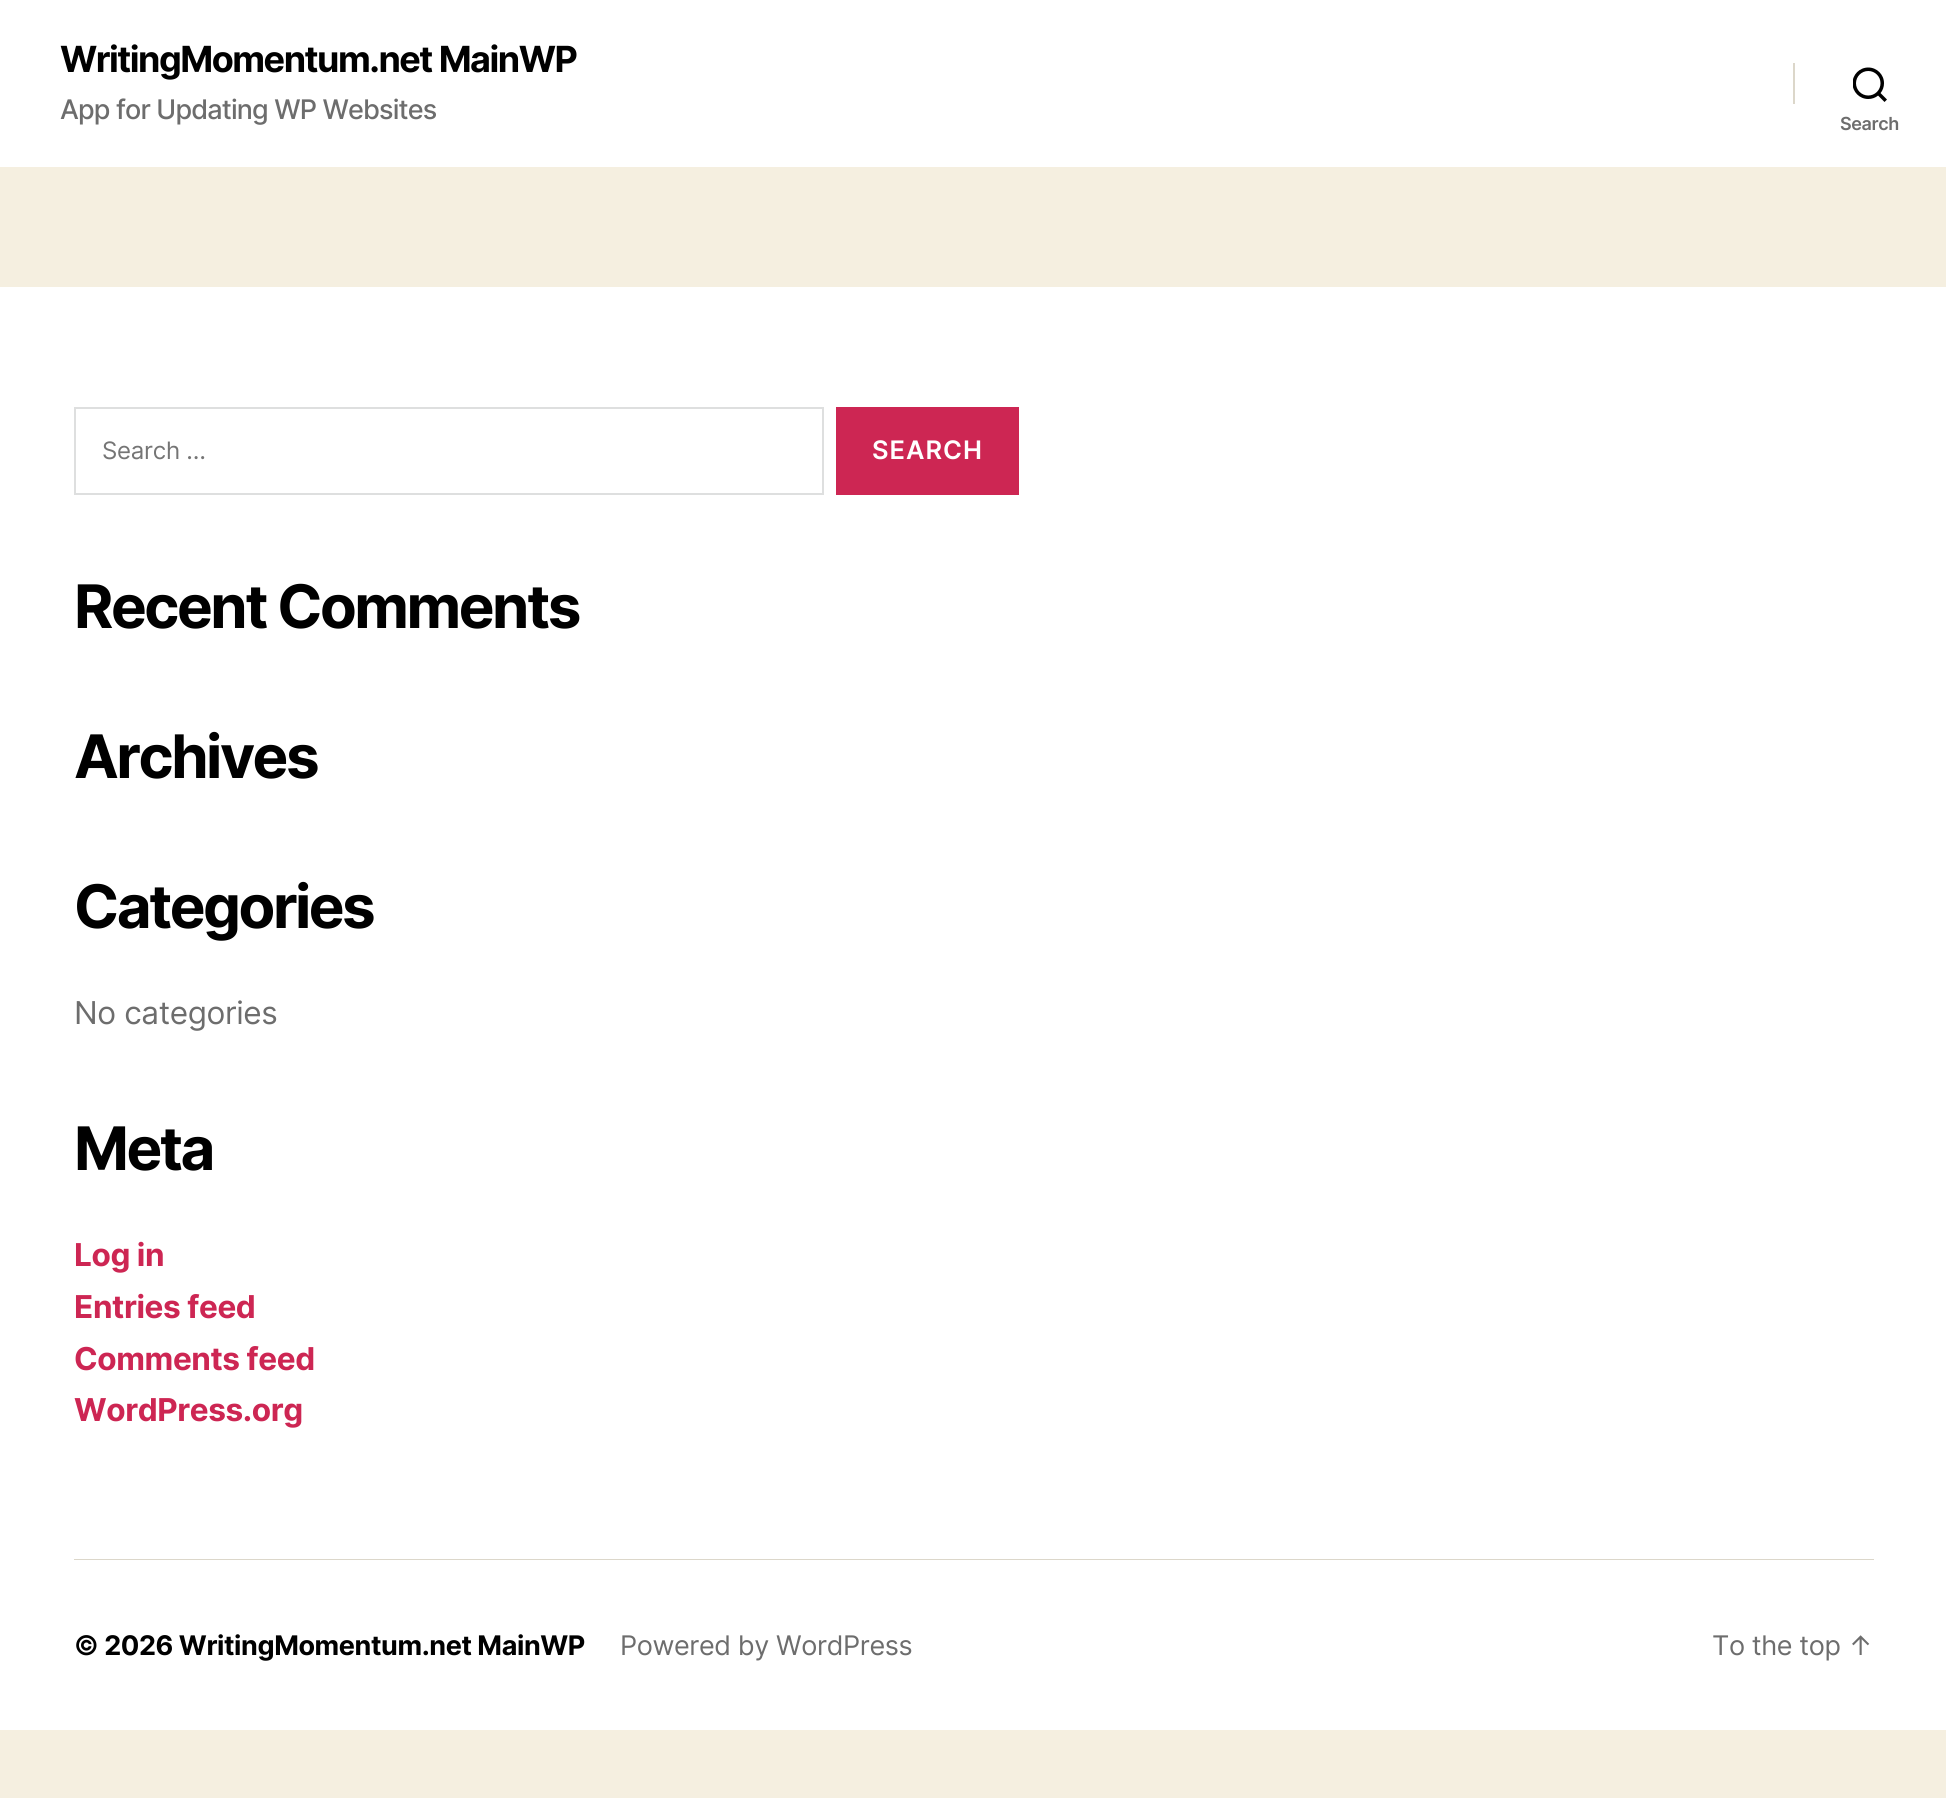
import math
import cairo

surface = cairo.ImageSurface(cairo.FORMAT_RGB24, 1946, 1798)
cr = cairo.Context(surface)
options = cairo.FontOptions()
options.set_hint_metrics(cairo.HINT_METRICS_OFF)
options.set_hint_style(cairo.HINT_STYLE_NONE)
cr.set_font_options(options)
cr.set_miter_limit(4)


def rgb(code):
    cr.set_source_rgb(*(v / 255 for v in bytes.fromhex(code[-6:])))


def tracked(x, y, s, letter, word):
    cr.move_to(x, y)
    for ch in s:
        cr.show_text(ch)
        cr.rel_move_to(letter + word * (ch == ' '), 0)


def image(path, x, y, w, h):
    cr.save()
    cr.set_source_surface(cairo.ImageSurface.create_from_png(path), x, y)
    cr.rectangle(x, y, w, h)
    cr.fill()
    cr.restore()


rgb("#f5efe0")
cr.paint()
rgb("#ffffff")
cr.rectangle(0, 0, 1946, 167)
cr.fill()
rgb("#dcd7ca")
cr.rectangle(1793, 63, 2, 41)
cr.fill()
image("img/1.png", 1853, 67, 34, 35)
rgb("#ffffff")
cr.rectangle(0, 287, 1946, 1443)
cr.fill()
rgb("#dcd7ca")
cr.rectangle(74, 1559, 1800, 1)
cr.fill()
cr.rectangle(75, 408, 748, 86)
rgb("#dedfdf")
cr.stroke()
rgb("#cd2653")
cr.rectangle(836, 407, 183, 88)
cr.fill()
cr.select_font_face("Inter", cairo.FONT_SLANT_NORMAL, cairo.FONT_WEIGHT_BOLD)
cr.set_font_size(36)
rgb("#000000")
tracked(60, 72, "WritingMomentum.net MainWP", -1.5, 0)
cr.select_font_face("Inter Medium")
cr.set_font_size(27)
rgb("#6d6d6d")
tracked(60, 119, "App for Updating WP Websites", -0.85, 0)
cr.select_font_face("Inter SemiBold")
cr.set_font_size(18)
tracked(1840, 130, "Search", -0.4, 0)
cr.select_font_face("Inter")
cr.set_font_size(24)
rgb("#757575")
tracked(102, 459, "Search …", -0.25, 0)
cr.select_font_face("Inter SemiBold")
cr.set_font_size(25.5)
rgb("#ffffff")
tracked(872, 459, "SEARCH", 1, 0)
cr.select_font_face("Inter", cairo.FONT_SLANT_NORMAL, cairo.FONT_WEIGHT_BOLD)
cr.set_font_size(60)
rgb("#000000")
for x, y, s in [
    (74, 628, "Recent Comments"),
    (74, 778, "Archives"),
    (74, 928, "Categories"),
]:
    tracked(x, y, s, -2.5, 0)
cr.select_font_face("Inter")
cr.set_font_size(31.5)
rgb("#6d6d6d")
tracked(74, 1024, "No categories", -0.4, 0)
cr.select_font_face("Inter", cairo.FONT_SLANT_NORMAL, cairo.FONT_WEIGHT_BOLD)
cr.set_font_size(60)
rgb("#000000")
tracked(74, 1170, "Meta", -2.5, 0)
cr.set_font_size(31.5)
rgb("#cd2653")
for x, y, s in [
    (74, 1266, "Log in"),
    (74, 1318, "Entries feed"),
    (74, 1370, "Comments feed"),
    (74, 1421, "WordPress.org"),
]:
    tracked(x, y, s, -0.4, 0)
cr.set_font_size(27)
rgb("#000000")
tracked(74, 1655, "© 2026 WritingMomentum.net MainWP", -0.4, 0)
cr.select_font_face("Inter")
rgb("#6d6d6d")
tracked(620, 1655, "Powered by WordPress", -0.4, 0)
tracked(1712, 1655, "To the top ↑", -0.4, 0)
surface.write_to_png("page.png")
